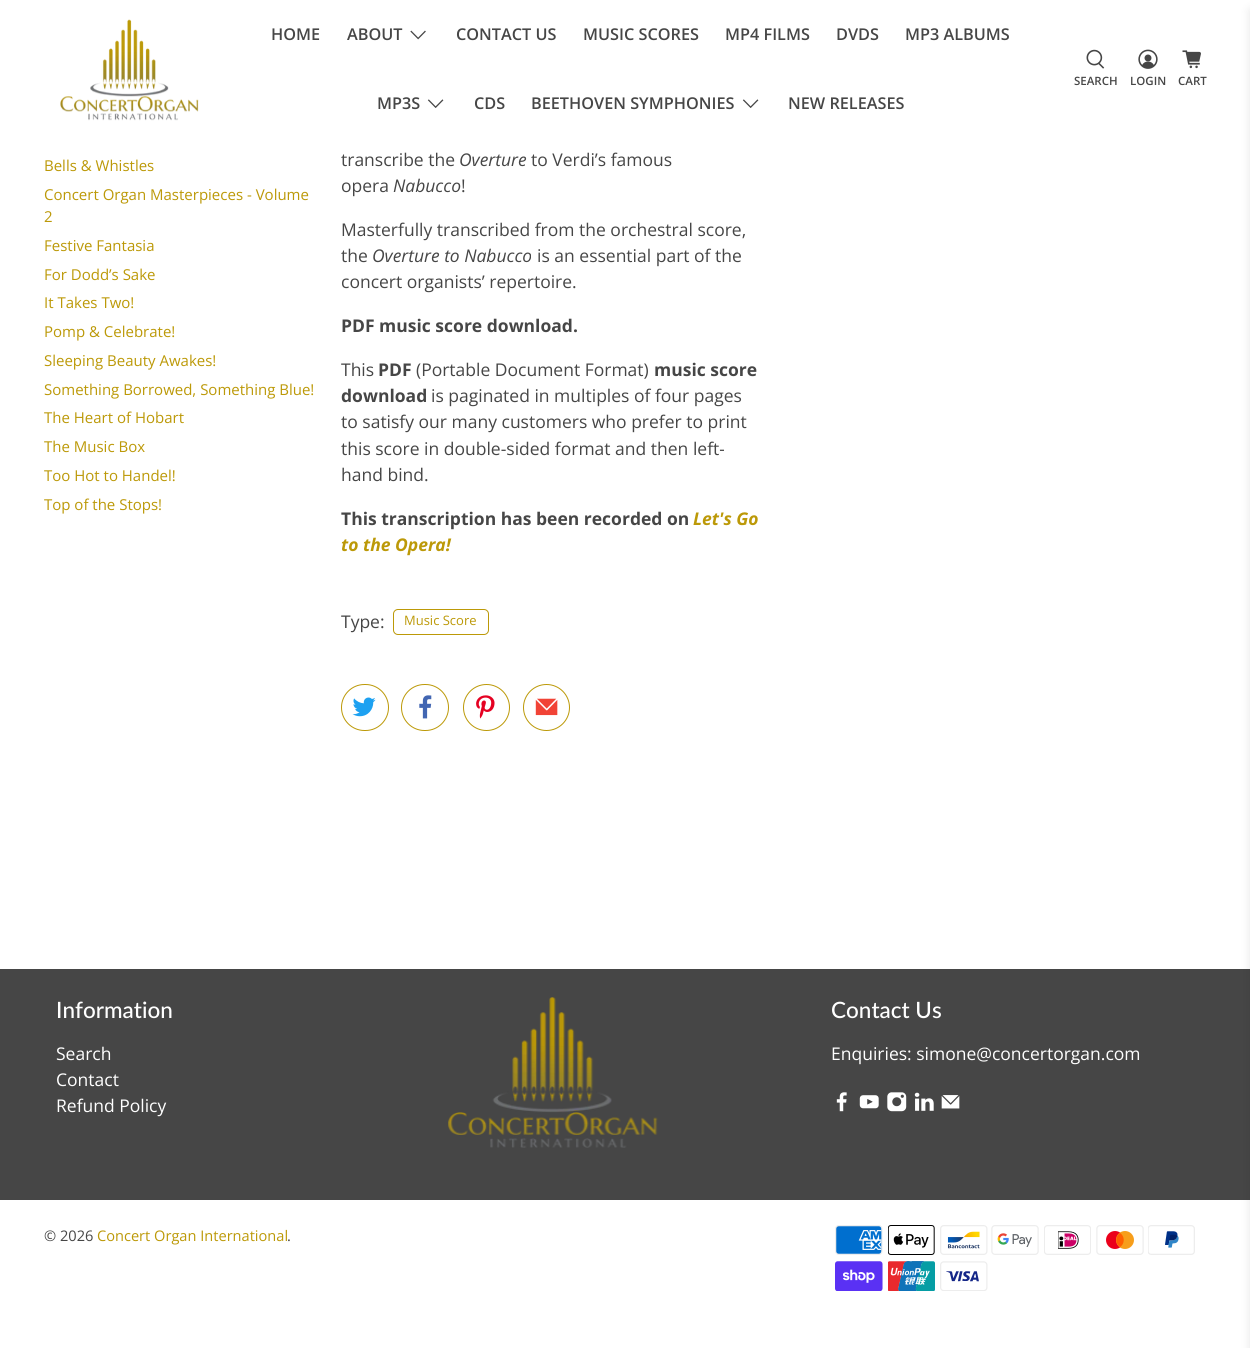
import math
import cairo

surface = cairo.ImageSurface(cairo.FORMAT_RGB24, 1250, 1348)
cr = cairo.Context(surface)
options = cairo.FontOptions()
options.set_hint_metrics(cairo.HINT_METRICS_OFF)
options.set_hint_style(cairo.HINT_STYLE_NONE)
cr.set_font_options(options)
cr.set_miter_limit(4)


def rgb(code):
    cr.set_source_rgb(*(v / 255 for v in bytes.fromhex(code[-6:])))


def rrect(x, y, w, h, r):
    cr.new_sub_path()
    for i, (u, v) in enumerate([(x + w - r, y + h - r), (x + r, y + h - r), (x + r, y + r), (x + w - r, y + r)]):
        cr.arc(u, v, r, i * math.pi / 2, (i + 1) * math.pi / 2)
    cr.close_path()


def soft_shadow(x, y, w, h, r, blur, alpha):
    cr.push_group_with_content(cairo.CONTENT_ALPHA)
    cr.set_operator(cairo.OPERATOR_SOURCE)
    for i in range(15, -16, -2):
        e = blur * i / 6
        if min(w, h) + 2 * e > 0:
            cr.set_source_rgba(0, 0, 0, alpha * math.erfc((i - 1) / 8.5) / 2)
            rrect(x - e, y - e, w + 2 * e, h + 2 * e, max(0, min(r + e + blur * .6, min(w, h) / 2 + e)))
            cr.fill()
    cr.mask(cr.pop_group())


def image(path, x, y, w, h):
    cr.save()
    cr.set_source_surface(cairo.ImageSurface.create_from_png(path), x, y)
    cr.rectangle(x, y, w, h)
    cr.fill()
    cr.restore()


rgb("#ffffff")
cr.paint()
image("img/1.png", 60, 19, 139, 102)
image("img/2.png", 410, 30, 16, 10)
image("img/3.png", 427, 99, 17, 9)
image("img/4.png", 742, 99, 17, 9)
image("img/5.png", 1086, 49, 19, 20)
image("img/6.png", 1138, 49, 20, 20)
image("img/7.png", 1182, 50, 19, 19)
rgb("#464646")
cr.rectangle(0, 969, 1250, 231)
cr.fill()
rgb("#0a0a0a")
soft_shadow(1250, 10, 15, 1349, 0, 5, 0.1)
rrect(393.5, 609.5, 95, 25, 4.5)
rgb("#bc9908")
cr.set_line_width(1)
cr.stroke()
rrect(341.5, 684.5, 47, 46, 23)
cr.stroke()
image("img/8.png", 352, 697, 24, 20)
rrect(401.5, 684.5, 47, 46, 23)
cr.stroke()
image("img/9.png", 419, 695, 13, 24)
cr.arc(486.5, 707.5, 23, 0, 2 * math.pi)
cr.stroke()
image("img/10.png", 476, 695, 19, 24)
cr.arc(546.5, 707.5, 23, 0, 2 * math.pi)
cr.stroke()
image("img/11.png", 535, 698, 23, 18)
image("img/12.png", 448, 997, 210, 151)
image("img/13.png", 836, 1092, 11, 20)
image("img/14.png", 859, 1095, 20, 14)
image("img/15.png", 887, 1092, 20, 20)
image("img/16.png", 914, 1092, 20, 19)
image("img/17.png", 941, 1095, 19, 14)
image("img/18.png", 835, 1225, 48, 30)
image("img/19.png", 888, 1225, 47, 30)
image("img/20.png", 940, 1225, 48, 30)
image("img/21.png", 991, 1225, 48, 30)
image("img/22.png", 1044, 1225, 47, 30)
image("img/23.png", 1096, 1225, 48, 30)
image("img/24.png", 1148, 1225, 47, 30)
image("img/25.png", 835, 1261, 48, 30)
image("img/26.png", 888, 1261, 47, 30)
image("img/27.png", 940, 1261, 48, 30)
cr.select_font_face("Open Sans SemiBold")
cr.set_font_size(16.25)
rgb("#464646")
for x, y, s in [
    (271, 40, "HOME"),
    (347, 40, "ABOUT"),
    (456, 40, "CONTACT US"),
    (583, 40, "MUSIC SCORES"),
    (725, 40, "MP4 FILMS"),
    (836, 40, "DVDS"),
    (905, 40, "MP3 ALBUMS"),
    (377, 109, "MP3S"),
    (474, 109, "CDS"),
    (531, 109, "BEETHOVEN SYMPHONIES"),
    (788, 109, "NEW RELEASES"),
]:
    cr.move_to(x, y)
    cr.show_text(s)
cr.set_font_size(11.5)
for x, y, s in [
    (1074, 85, "SEARCH"),
    (1130, 85, "LOGIN"),
    (1178, 85, "CART"),
]:
    cr.move_to(x, y)
    cr.show_text(s)
cr.select_font_face("Open Sans")
cr.set_font_size(15)
rgb("#bc9908")
for x, y, s in [
    (44, 171, "Bells & Whistles"),
    (44, 200, "Concert Organ Masterpieces - Volume"),
    (44, 222, "2"),
    (44, 251, "Festive Fantasia"),
    (44, 280, "For Dodd’s Sake"),
    (44, 308, "It Takes Two!"),
    (44, 337, "Pomp & Celebrate!"),
    (44, 366, "Sleeping Beauty Awakes!"),
    (44, 395, "Something Borrowed, Something Blue!"),
    (44, 423, "The Heart of Hobart"),
    (44, 452, "The Music Box"),
    (44, 481, "Too Hot to Handel!"),
    (44, 510, "Top of the Stops!"),
]:
    cr.move_to(x, y)
    cr.show_text(s)
cr.set_font_size(17.5)
rgb("#464646")
cr.move_to(341, 166)
cr.show_text("transcribe the")
cr.select_font_face("Open Sans", cairo.FONT_SLANT_ITALIC)
cr.move_to(459, 166)
cr.show_text("Overture")
cr.select_font_face("Open Sans")
cr.move_to(531, 166)
cr.show_text("to Verdi’s famous")
cr.move_to(341, 192)
cr.show_text("opera")
cr.select_font_face("Open Sans", cairo.FONT_SLANT_ITALIC)
cr.move_to(393, 192)
cr.show_text("Nabucco")
cr.select_font_face("Open Sans")
for x, y, s in [
    (461, 192, "!"),
    (341, 236, "Masterfully transcribed from the orchestral score,"),
    (341, 262, "the"),
]:
    cr.move_to(x, y)
    cr.show_text(s)
cr.select_font_face("Open Sans", cairo.FONT_SLANT_ITALIC)
cr.move_to(372, 262)
cr.show_text("Overture to Nabucco")
cr.select_font_face("Open Sans")
cr.move_to(537, 262)
cr.show_text("is an essential part of the")
cr.move_to(341, 288)
cr.show_text("concert organists’ repertoire.")
cr.select_font_face("Open Sans", cairo.FONT_SLANT_NORMAL, cairo.FONT_WEIGHT_BOLD)
cr.move_to(341, 332)
cr.show_text("PDF music score download.")
cr.select_font_face("Open Sans")
cr.move_to(341, 376)
cr.show_text("This")
cr.select_font_face("Open Sans", cairo.FONT_SLANT_NORMAL, cairo.FONT_WEIGHT_BOLD)
cr.move_to(378, 376)
cr.show_text("PDF")
cr.select_font_face("Open Sans")
cr.move_to(416, 376)
cr.show_text("(Portable Document Format)")
cr.select_font_face("Open Sans", cairo.FONT_SLANT_NORMAL, cairo.FONT_WEIGHT_BOLD)
cr.move_to(654, 376)
cr.show_text("music score")
cr.move_to(341, 402)
cr.show_text("download")
cr.select_font_face("Open Sans")
for x, y, s in [
    (431, 402, "is paginated in multiples of four pages"),
    (341, 428, "to satisfy our many customers who prefer to print"),
    (341, 455, "this score in double-sided format and then left-"),
    (341, 481, "hand bind."),
]:
    cr.move_to(x, y)
    cr.show_text(s)
cr.select_font_face("Open Sans", cairo.FONT_SLANT_NORMAL, cairo.FONT_WEIGHT_BOLD)
cr.move_to(341, 525)
cr.show_text("This transcription has been recorded on")
cr.select_font_face("Open Sans", cairo.FONT_SLANT_ITALIC, cairo.FONT_WEIGHT_BOLD)
rgb("#bc9908")
cr.move_to(693, 525)
cr.show_text("Let's Go")
cr.move_to(341, 551)
cr.show_text("to the Opera!")
cr.select_font_face("Open Sans")
rgb("#464646")
cr.move_to(341, 628)
cr.show_text("Type:")
cr.set_font_size(13)
rgb("#bc9908")
cr.move_to(404, 625)
cr.show_text("Music Score")
cr.select_font_face("Lato Medium")
cr.set_font_size(22.5)
rgb("#ffffff")
cr.move_to(56, 1018)
cr.show_text("Information")
cr.select_font_face("Open Sans")
cr.set_font_size(17.5)
for x, y, s in [
    (56, 1060, "Search"),
    (56, 1086, "Contact"),
    (56, 1112, "Refund Policy"),
]:
    cr.move_to(x, y)
    cr.show_text(s)
cr.select_font_face("Lato Medium")
cr.set_font_size(22.5)
cr.move_to(831, 1018)
cr.show_text("Contact Us")
cr.select_font_face("Open Sans")
cr.set_font_size(17.5)
cr.move_to(831, 1060)
cr.show_text("Enquiries: simone@concertorgan.com")
cr.set_font_size(14.6)
rgb("#464646")
cr.move_to(44, 1241)
cr.show_text("© 2026")
rgb("#bc9908")
cr.move_to(97, 1241)
cr.show_text("Concert Organ International")
rgb("#464646")
cr.move_to(287, 1241)
cr.show_text(".")
surface.write_to_png("page.png")
